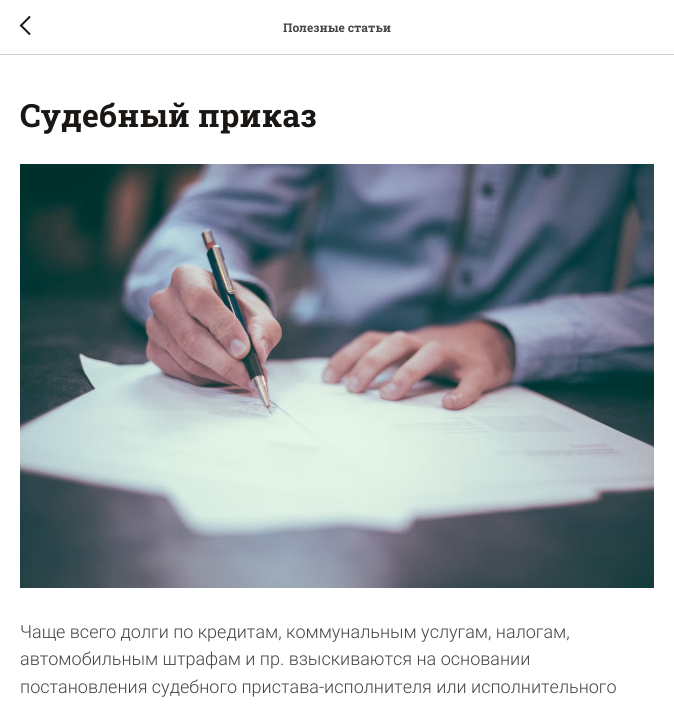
import math
import cairo

surface = cairo.ImageSurface(cairo.FORMAT_RGB24, 674, 717)
cr = cairo.Context(surface)
options = cairo.FontOptions()
options.set_hint_metrics(cairo.HINT_METRICS_OFF)
options.set_hint_style(cairo.HINT_STYLE_NONE)
cr.set_font_options(options)
cr.set_miter_limit(4)


def rgb(code):
    cr.set_source_rgb(*(v / 255 for v in bytes.fromhex(code[-6:])))


def image(path, x, y, w, h):
    cr.save()
    cr.set_source_surface(cairo.ImageSurface.create_from_png(path), x, y)
    cr.rectangle(x, y, w, h)
    cr.fill()
    cr.restore()


rgb("#ffffff")
cr.paint()
rgb("#cccccc")
cr.rectangle(0, 54, 674, 1)
cr.fill()
cr.new_path()
cr.move_to(30, 34.5)
cr.line_to(21, 25.5)
cr.line_to(30, 16.5)
rgb("#191614")
cr.stroke()
image("img/1.png", 20, 164, 634, 424)
cr.select_font_face("Roboto Slab", cairo.FONT_SLANT_NORMAL, cairo.FONT_WEIGHT_BOLD)
cr.set_font_size(12)
rgb("#474543")
cr.move_to(283, 32)
cr.show_text("Полезные статьи")
cr.set_font_size(32)
rgb("#191614")
cr.move_to(20, 127)
cr.show_text("Судебный приказ")
cr.select_font_face("Roboto Light")
cr.set_font_size(18)
rgb("#474543")
for x, y, s in [
    (20, 638, "Чаще всего долги по кредитам, коммунальным услугам, налогам,"),
    (20, 665, "автомобильным штрафам и пр. взыскиваются на основании"),
    (20, 693, "постановления судебного пристава-исполнителя или исполнительного"),
]:
    cr.move_to(x, y)
    cr.show_text(s)
surface.write_to_png("page.png")
